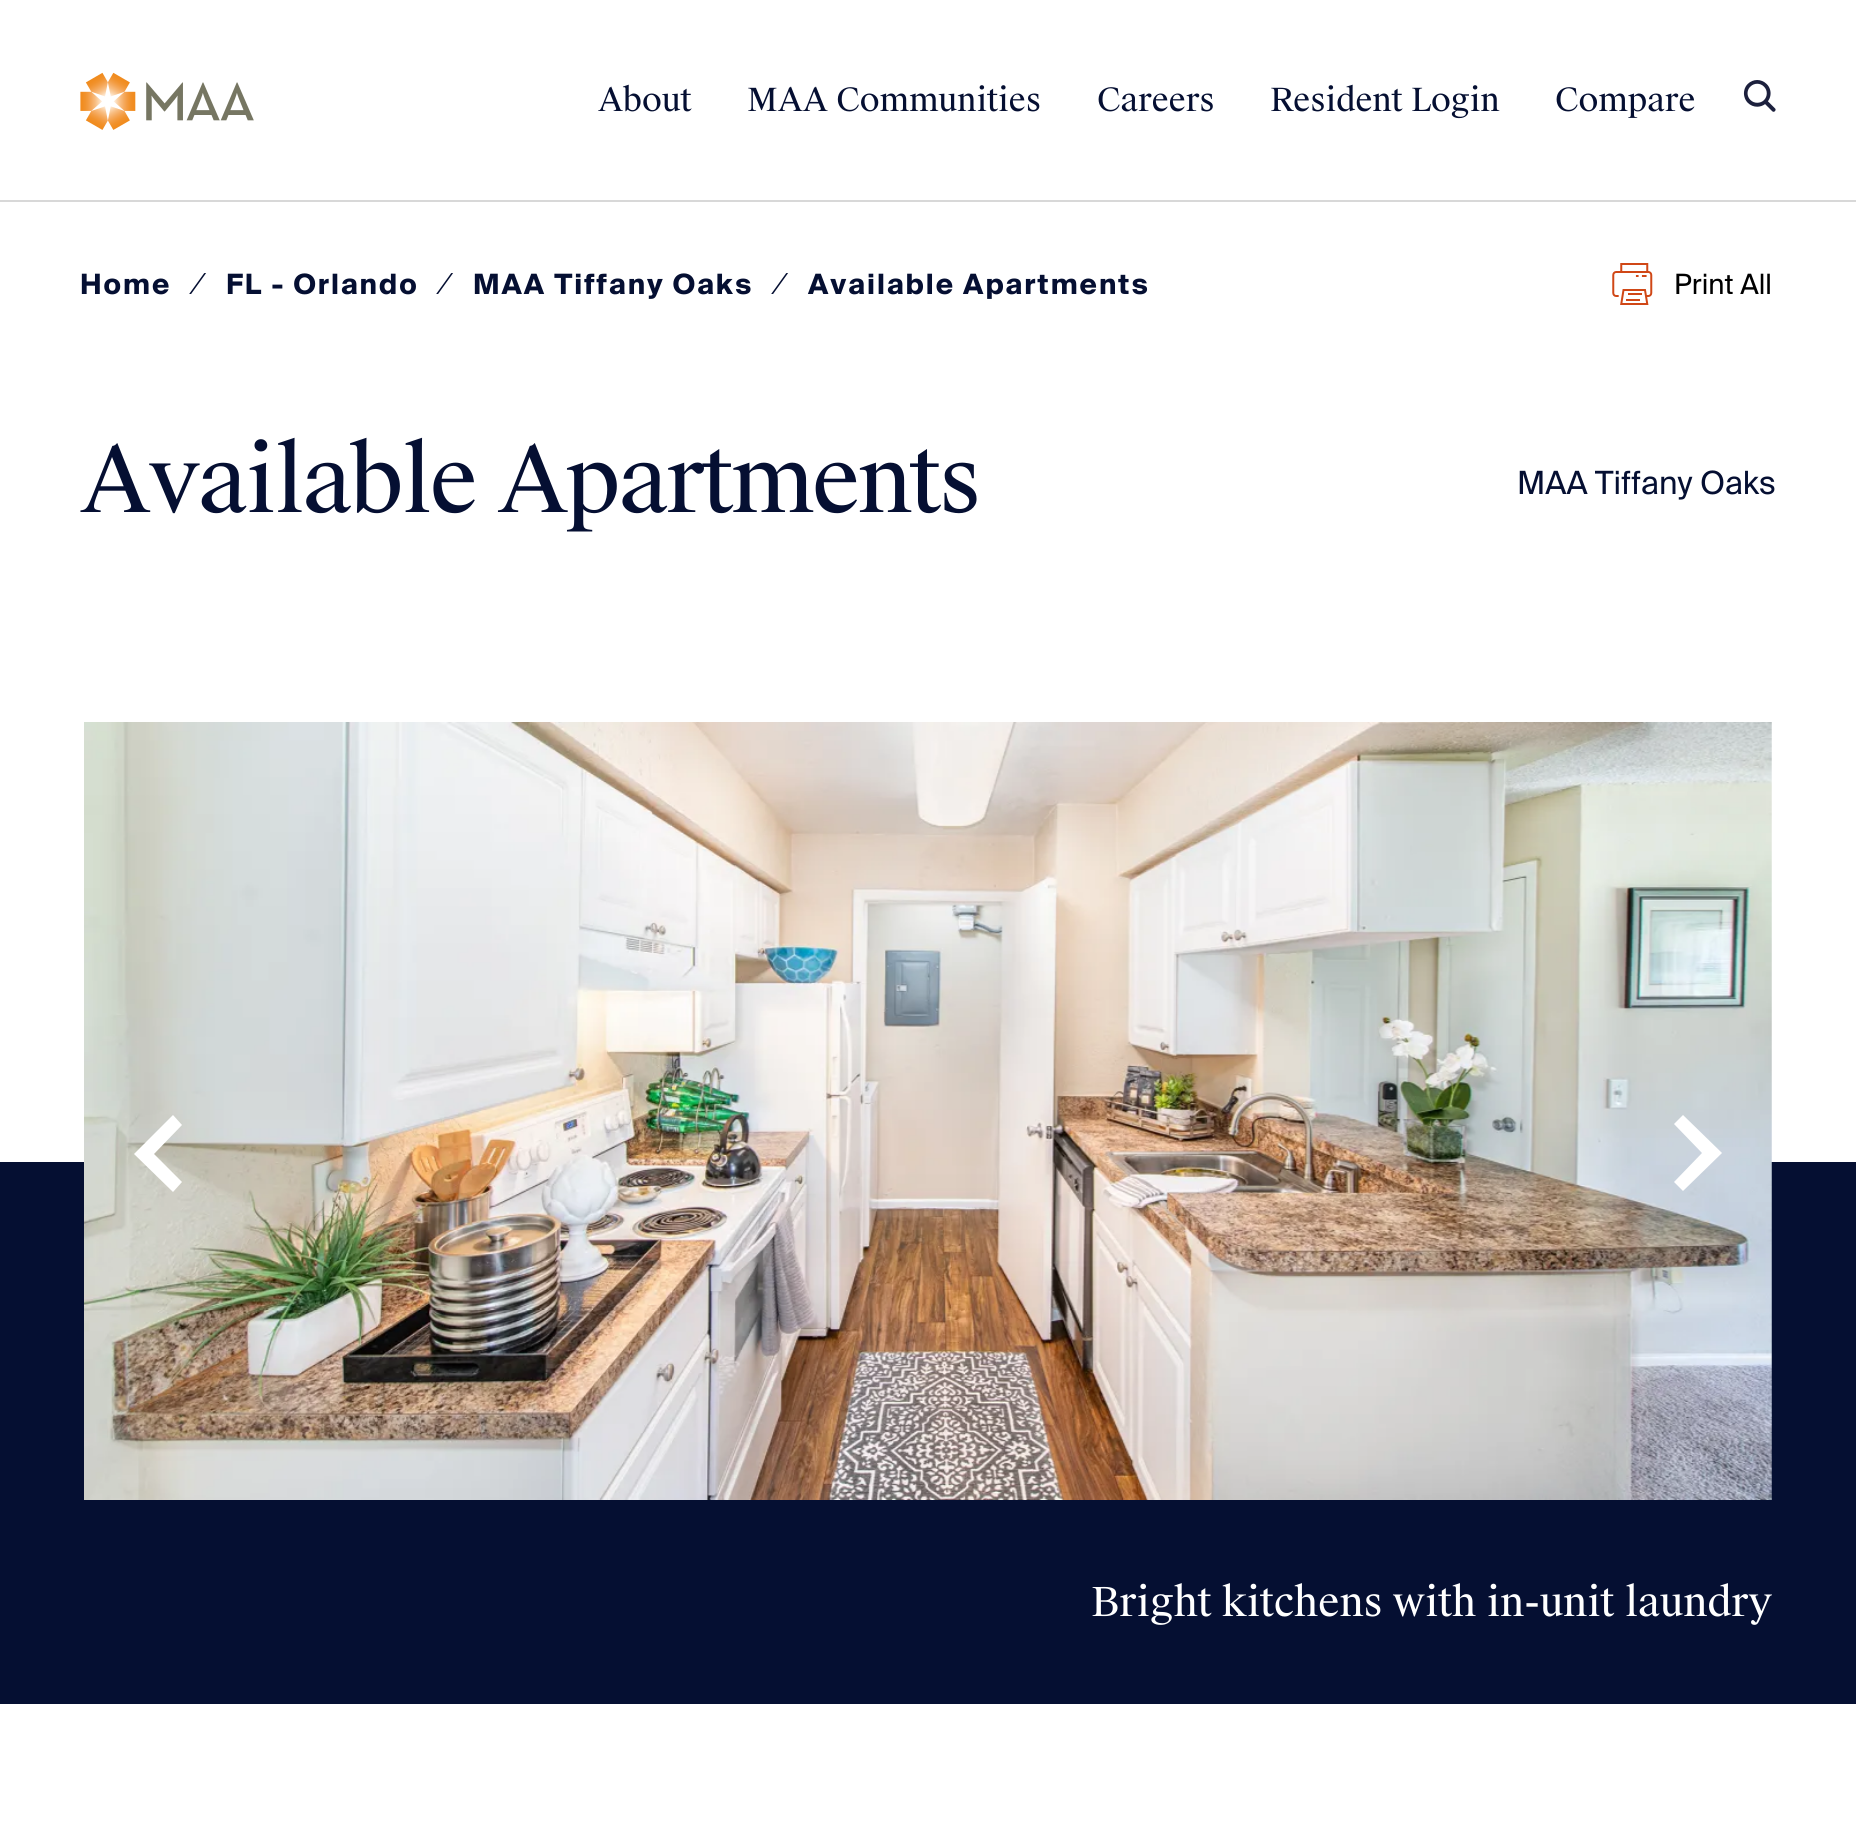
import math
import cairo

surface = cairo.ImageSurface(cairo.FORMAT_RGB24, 1856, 1822)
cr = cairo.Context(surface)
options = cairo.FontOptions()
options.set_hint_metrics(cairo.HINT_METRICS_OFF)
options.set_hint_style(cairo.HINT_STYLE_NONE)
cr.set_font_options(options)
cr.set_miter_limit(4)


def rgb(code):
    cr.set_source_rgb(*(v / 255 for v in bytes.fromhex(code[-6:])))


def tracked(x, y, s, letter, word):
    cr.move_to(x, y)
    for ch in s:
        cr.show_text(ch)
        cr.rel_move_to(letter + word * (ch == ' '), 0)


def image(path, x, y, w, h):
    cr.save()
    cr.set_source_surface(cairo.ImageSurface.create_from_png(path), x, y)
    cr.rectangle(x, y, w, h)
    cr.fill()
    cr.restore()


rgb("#ffffff")
cr.paint()
image("img/1.png", 80, 72, 174, 58)
image("img/2.png", 1743, 80, 33, 32)
rgb("#d8d8d8")
cr.rectangle(0, 200, 1856, 2)
cr.fill()
image("img/3.png", 1612, 263, 41, 42)
rgb("#050f32")
cr.rectangle(0, 1162, 1856, 542)
cr.fill()
image("img/4.png", 84, 722, 1688, 778)
rgb("#ffffff")
cr.new_path()
cr.move_to(182, 1182)
cr.line_to(154, 1154)
cr.line_to(182, 1125)
cr.line_to(173, 1115)
cr.line_to(134, 1154)
cr.line_to(173, 1192)
cr.close_path()
cr.fill()
cr.new_path()
cr.move_to(1674, 1124)
cr.line_to(1702, 1153)
cr.line_to(1674, 1182)
cr.line_to(1683, 1191)
cr.line_to(1722, 1153)
cr.line_to(1683, 1115)
cr.close_path()
cr.fill()
cr.select_font_face("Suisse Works")
cr.set_font_size(32)
rgb("#050f32")
for x, y, s in [
    (598, 111, "About"),
    (747, 111, "MAA Communities"),
    (1097, 111, "Careers"),
    (1270, 111, "Resident Login"),
    (1555, 111, "Compare"),
]:
    cr.move_to(x, y)
    cr.show_text(s)
cr.select_font_face("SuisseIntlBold", cairo.FONT_SLANT_NORMAL, cairo.FONT_WEIGHT_BOLD)
cr.set_font_size(28)
tracked(80, 294, "Home", 2, 0)
cr.select_font_face("Liberation Serif", cairo.FONT_SLANT_NORMAL, cairo.FONT_WEIGHT_BOLD)
cr.set_font_size(32)
tracked(195, 294, "⁄", 2, 0)
cr.select_font_face("SuisseIntlBold", cairo.FONT_SLANT_NORMAL, cairo.FONT_WEIGHT_BOLD)
cr.set_font_size(28)
tracked(226, 294, "FL - Orlando", 2, 0)
cr.select_font_face("Liberation Serif", cairo.FONT_SLANT_NORMAL, cairo.FONT_WEIGHT_BOLD)
cr.set_font_size(32)
tracked(442, 294, "⁄", 2, 0)
cr.select_font_face("SuisseIntlBold", cairo.FONT_SLANT_NORMAL, cairo.FONT_WEIGHT_BOLD)
cr.set_font_size(28)
tracked(473, 294, "MAA Tiffany Oaks", 2, 0)
cr.select_font_face("Liberation Serif", cairo.FONT_SLANT_NORMAL, cairo.FONT_WEIGHT_BOLD)
cr.set_font_size(32)
tracked(777, 294, "⁄", 2, 0)
cr.select_font_face("SuisseIntlBold", cairo.FONT_SLANT_NORMAL, cairo.FONT_WEIGHT_BOLD)
cr.set_font_size(28)
tracked(808, 294, "Available Apartments", 2, 0)
cr.select_font_face("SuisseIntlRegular")
rgb("#000000")
cr.move_to(1674, 294)
cr.show_text("Print All")
cr.select_font_face("Suisse Works")
cr.set_font_size(90.25)
rgb("#050f32")
tracked(80, 512, "Available Apartments", -2, 0)
cr.select_font_face("SuisseIntlRegular")
cr.set_font_size(32)
cr.move_to(1517, 494)
cr.show_text("MAA Tiffany Oaks")
cr.select_font_face("Suisse Works")
cr.set_font_size(40)
rgb("#ffffff")
cr.move_to(1091, 1616)
cr.show_text("Bright kitchens with in-unit laundry")
surface.write_to_png("page.png")
